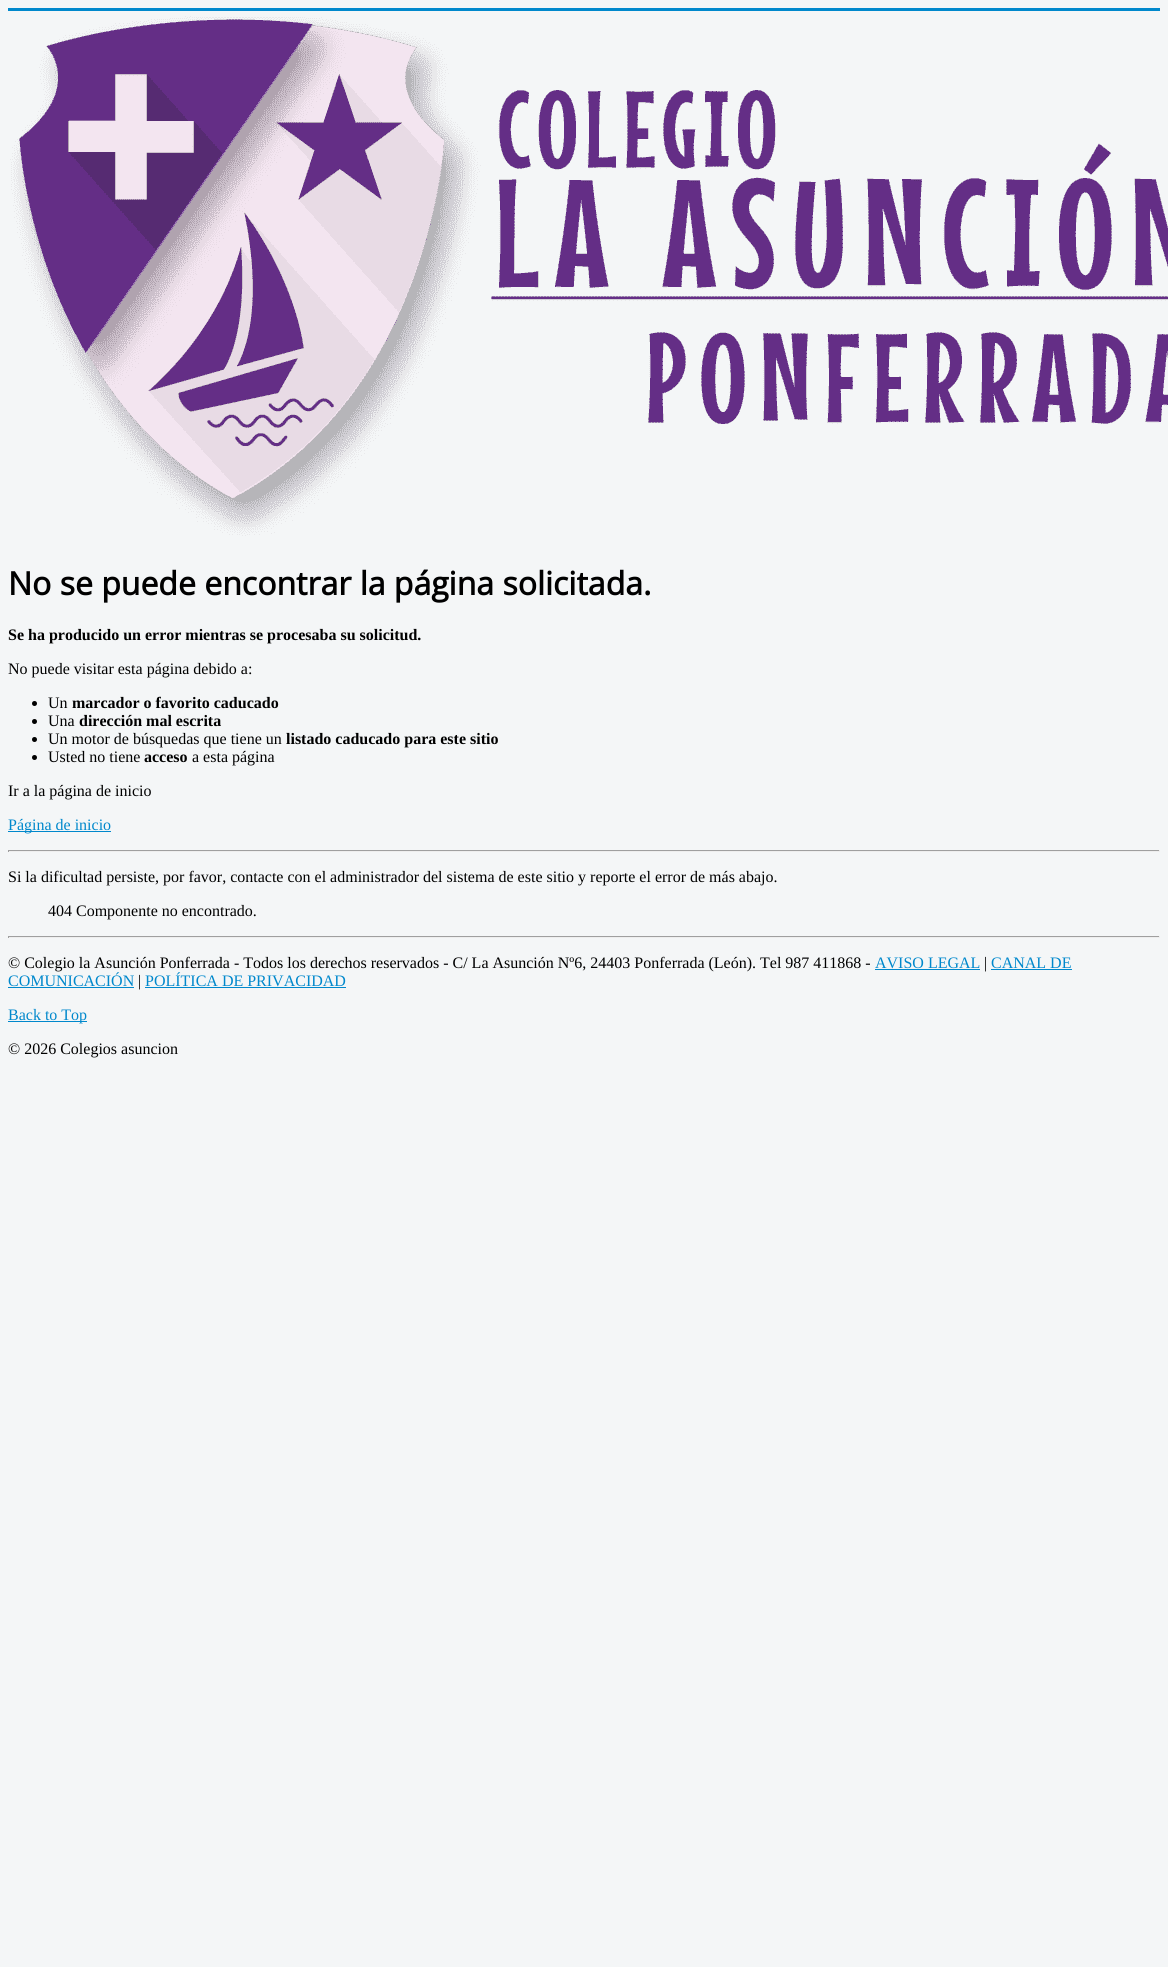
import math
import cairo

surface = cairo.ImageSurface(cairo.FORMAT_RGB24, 1168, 1967)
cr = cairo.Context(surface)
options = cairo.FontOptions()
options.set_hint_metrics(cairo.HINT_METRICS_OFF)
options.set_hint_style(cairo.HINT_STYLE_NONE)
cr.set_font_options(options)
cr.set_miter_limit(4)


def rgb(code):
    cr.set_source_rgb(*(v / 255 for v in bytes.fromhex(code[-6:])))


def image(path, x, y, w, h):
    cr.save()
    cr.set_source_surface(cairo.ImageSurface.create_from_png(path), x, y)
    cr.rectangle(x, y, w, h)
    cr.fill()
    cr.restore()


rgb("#f4f6f7")
cr.paint()
rgb("#0088cc")
cr.rectangle(8, 8, 1152, 3)
cr.fill()
image("img/1.png", 10, 16, 1158, 520)
rgb("#000000")
cr.arc(34.5, 703.5, 2.5, 0, 2 * math.pi)
cr.fill()
cr.arc(34.5, 721.5, 2.5, 0, 2 * math.pi)
cr.fill()
cr.arc(34.5, 739.5, 2.5, 0, 2 * math.pi)
cr.fill()
cr.arc(34.5, 757.5, 2.5, 0, 2 * math.pi)
cr.fill()
for x, y, w, h, color in [
    (8, 831, 103, 1, "#0088cc"),
    (8, 850, 1152, 1, "#9f9f9f"),
    (1159, 850, 1, 2, "#eeeeee"),
    (8, 851, 1152, 1, "#eeeeee"),
    (8, 850, 1, 2, "#9f9f9f"),
    (8, 936, 1152, 1, "#9f9f9f"),
    (1159, 936, 1, 2, "#eeeeee"),
    (8, 937, 1152, 1, "#eeeeee"),
    (8, 936, 1, 2, "#9f9f9f"),
    (875, 969, 105, 1, "#0088cc"),
    (991, 969, 81, 1, "#0088cc"),
    (8, 987, 126, 1, "#0088cc"),
    (145, 987, 201, 1, "#0088cc"),
    (8, 1021, 79, 1, "#0088cc"),
]:
    rgb(color)
    cr.rectangle(x, y, w, h)
    cr.fill()
cr.select_font_face("Open Sans", cairo.FONT_SLANT_NORMAL, cairo.FONT_WEIGHT_BOLD)
cr.set_font_size(32)
rgb("#000000")
cr.move_to(8, 595)
cr.show_text("No se puede encontrar la página solicitada.")
cr.select_font_face("Liberation Serif", cairo.FONT_SLANT_NORMAL, cairo.FONT_WEIGHT_BOLD)
cr.set_font_size(16)
cr.move_to(8, 640)
cr.show_text("Se ha producido un error mientras se procesaba su solicitud.")
cr.select_font_face("Liberation Serif")
cr.move_to(8, 674)
cr.show_text("No puede visitar esta página debido a:")
cr.move_to(48, 708)
cr.show_text("Un")
cr.select_font_face("Liberation Serif", cairo.FONT_SLANT_NORMAL, cairo.FONT_WEIGHT_BOLD)
cr.move_to(72, 708)
cr.show_text("marcador o favorito caducado")
cr.select_font_face("Liberation Serif")
cr.move_to(48, 726)
cr.show_text("Una")
cr.select_font_face("Liberation Serif", cairo.FONT_SLANT_NORMAL, cairo.FONT_WEIGHT_BOLD)
cr.move_to(79, 726)
cr.show_text("dirección mal escrita")
cr.select_font_face("Liberation Serif")
cr.move_to(48, 744)
cr.show_text("Un motor de búsquedas que tiene un")
cr.select_font_face("Liberation Serif", cairo.FONT_SLANT_NORMAL, cairo.FONT_WEIGHT_BOLD)
cr.move_to(286, 744)
cr.show_text("listado caducado para este sitio")
cr.select_font_face("Liberation Serif")
cr.move_to(48, 762)
cr.show_text("Usted no tiene")
cr.select_font_face("Liberation Serif", cairo.FONT_SLANT_NORMAL, cairo.FONT_WEIGHT_BOLD)
cr.move_to(144, 762)
cr.show_text("acceso")
cr.select_font_face("Liberation Serif")
cr.move_to(192, 762)
cr.show_text("a esta página")
cr.move_to(8, 796)
cr.show_text("Ir a la página de inicio")
rgb("#0088cc")
cr.move_to(8, 830)
cr.show_text("Página de inicio")
rgb("#000000")
for x, y, s in [
    (8, 882, "Si la dificultad persiste, por favor, contacte con el administrador del sistema de este sitio y reporte el error de más abajo."),
    (48, 916, "404 Componente no encontrado."),
    (8, 968, "© Colegio la Asunción Ponferrada - Todos los derechos reservados - C/ La Asunción Nº6, 24403 Ponferrada (León). Tel 987 411868 -"),
]:
    cr.move_to(x, y)
    cr.show_text(s)
rgb("#0088cc")
cr.move_to(875, 968)
cr.show_text("AVISO LEGAL")
rgb("#000000")
cr.move_to(984, 968)
cr.show_text("|")
rgb("#0088cc")
cr.move_to(991, 968)
cr.show_text("CANAL DE")
cr.move_to(8, 986)
cr.show_text("COMUNICACIÓN")
rgb("#000000")
cr.move_to(138, 986)
cr.show_text("|")
rgb("#0088cc")
cr.move_to(145, 986)
cr.show_text("POLÍTICA DE PRIVACIDAD")
cr.move_to(8, 1020)
cr.show_text("Back to Top")
rgb("#000000")
cr.move_to(8, 1054)
cr.show_text("© 2026 Colegios asuncion")
surface.write_to_png("page.png")
